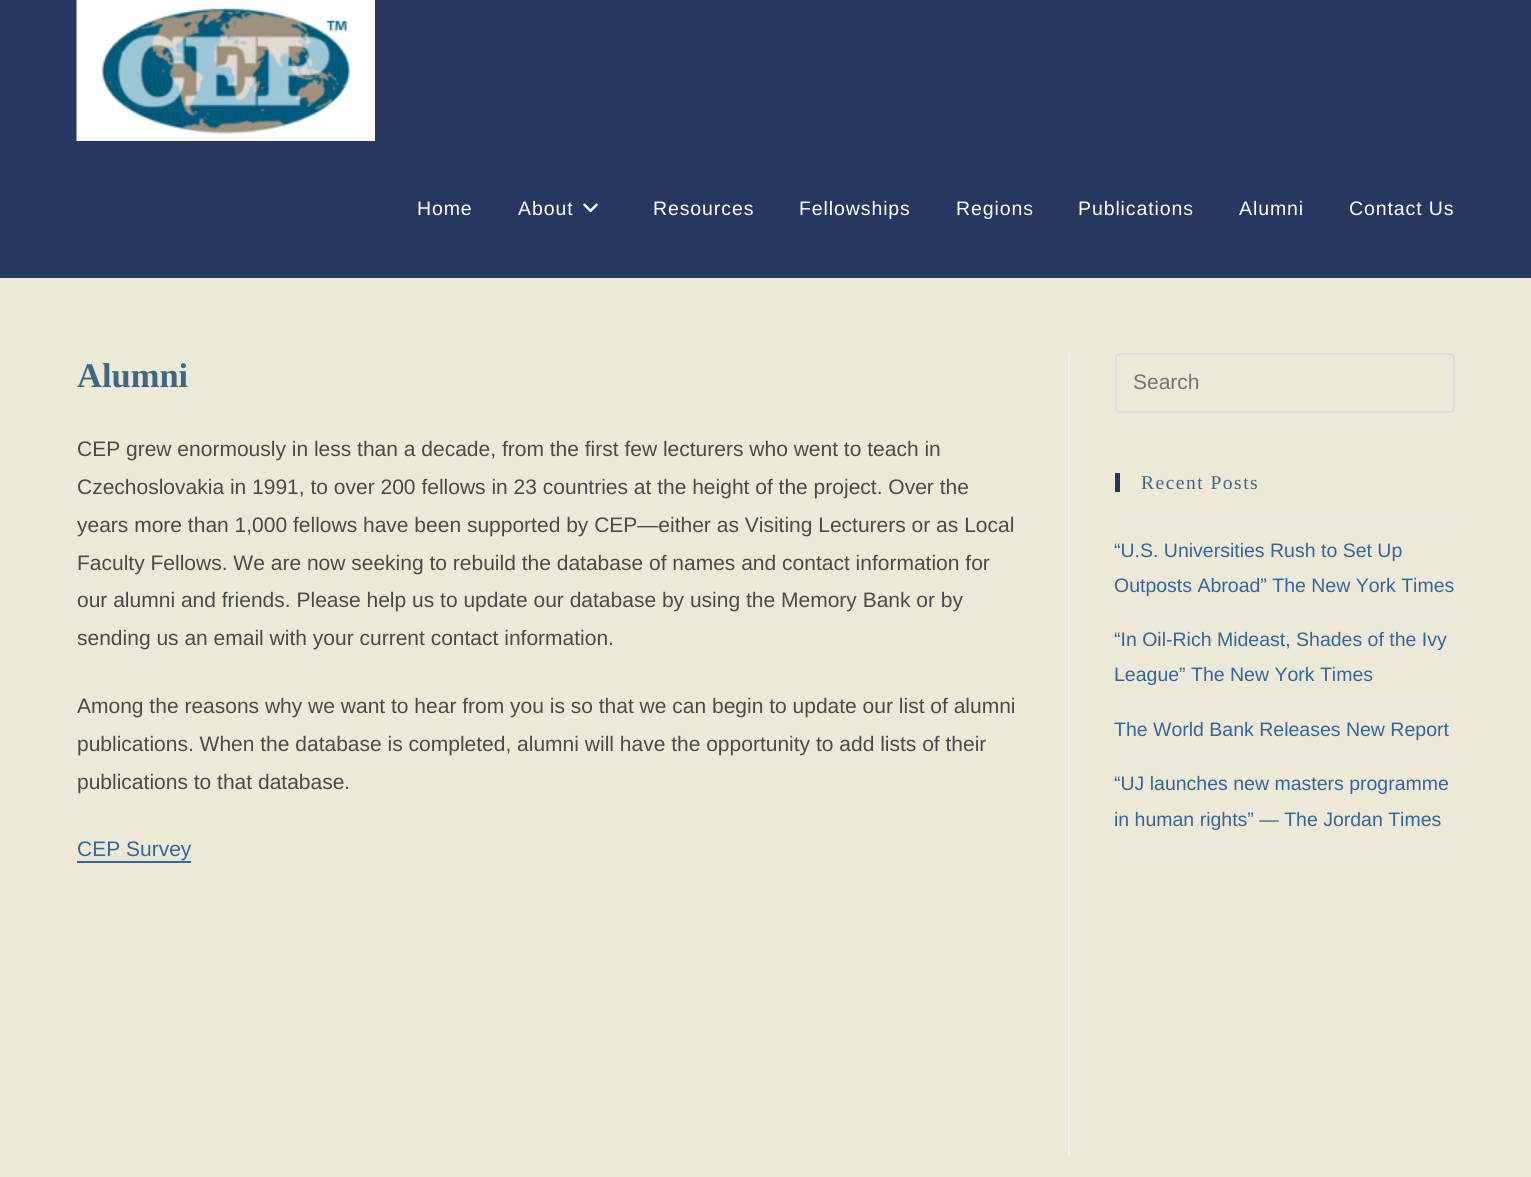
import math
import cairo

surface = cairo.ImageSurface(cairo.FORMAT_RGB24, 1531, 1177)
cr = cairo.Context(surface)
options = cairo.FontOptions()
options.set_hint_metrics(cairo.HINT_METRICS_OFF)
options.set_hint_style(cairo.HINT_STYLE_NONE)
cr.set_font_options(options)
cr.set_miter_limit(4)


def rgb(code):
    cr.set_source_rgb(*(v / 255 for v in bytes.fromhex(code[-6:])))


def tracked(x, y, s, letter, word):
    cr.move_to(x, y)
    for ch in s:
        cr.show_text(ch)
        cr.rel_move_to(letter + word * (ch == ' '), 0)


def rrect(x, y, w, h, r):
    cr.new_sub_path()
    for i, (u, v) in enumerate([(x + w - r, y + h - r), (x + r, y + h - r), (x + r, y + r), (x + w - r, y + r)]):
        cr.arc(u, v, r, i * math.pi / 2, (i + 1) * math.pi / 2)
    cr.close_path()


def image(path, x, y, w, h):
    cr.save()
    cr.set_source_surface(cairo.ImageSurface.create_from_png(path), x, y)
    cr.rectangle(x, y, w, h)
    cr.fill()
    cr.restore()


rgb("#ede9d9")
cr.paint()
rgb("#263762")
cr.rectangle(0, 0, 1531, 278)
cr.fill()
image("img/1.png", 76, 0, 299, 141)
image("img/2.png", 583, 203, 15, 9)
rgb("#f1f1f1")
cr.rectangle(1068, 353, 2, 802)
cr.fill()
rgb("#336699")
cr.rectangle(77, 861, 114, 2)
cr.fill()
rrect(1116, 354, 338, 58, 4)
rgb("#dddddd")
cr.stroke()
for x, y, w, h, color in [
    (1115, 473, 5, 19, "#263762"),
    (1115, 522, 340, 2, "#e9e9e9"),
    (1115, 612, 340, 2, "#e9e9e9"),
    (1115, 702, 340, 2, "#e9e9e9"),
    (1115, 756, 340, 2, "#e9e9e9"),
    (1115, 846, 340, 2, "#e9e9e9"),
]:
    rgb(color)
    cr.rectangle(x, y, w, h)
    cr.fill()
cr.select_font_face("Liberation Sans")
cr.set_font_size(19.5)
rgb("#ffffff")
for x, y, s in [
    (417, 215, "Home"),
    (518, 215, "About"),
    (653, 215, "Resources"),
    (799, 215, "Fellowships"),
    (956, 215, "Regions"),
    (1078, 215, "Publications"),
    (1239, 215, "Alumni"),
    (1349, 215, "Contact Us"),
]:
    tracked(x, y, s, 0.9, 0)
cr.select_font_face("Liberation Serif", cairo.FONT_SLANT_NORMAL, cairo.FONT_WEIGHT_BOLD)
cr.set_font_size(34.5)
rgb("#3c6883")
cr.move_to(77, 387)
cr.show_text("Alumni")
cr.select_font_face("Liberation Sans")
cr.set_font_size(21)
rgb("#4a4a4a")
for x, y, s in [
    (77, 456, "CEP grew enormously in less than a decade, from the first few lecturers who went to teach in"),
    (77, 494, "Czechoslovakia in 1991, to over 200 fellows in 23 countries at the height of the project. Over the"),
    (77, 532, "years more than 1,000 fellows have been supported by CEP—either as Visiting Lecturers or as Local"),
    (77, 570, "Faculty Fellows. We are now seeking to rebuild the database of names and contact information for"),
    (77, 607, "our alumni and friends. Please help us to update our database by using the Memory Bank or by"),
    (77, 645, "sending us an email with your current contact information."),
    (77, 713, "Among the reasons why we want to hear from you is so that we can begin to update our list of alumni"),
    (77, 751, "publications. When the database is completed, alumni will have the opportunity to add lists of their"),
    (77, 789, "publications to that database."),
]:
    cr.move_to(x, y)
    cr.show_text(s)
rgb("#336699")
cr.move_to(77, 856)
cr.show_text("CEP Survey")
rgb("#757575")
cr.move_to(1133, 389)
cr.show_text("Search")
cr.select_font_face("Liberation Serif")
cr.set_font_size(19.5)
rgb("#3c6883")
tracked(1141, 489, "Recent Posts", 1.5, 0)
cr.select_font_face("Liberation Sans")
rgb("#336699")
for x, y, s in [
    (1114, 557, "“U.S. Universities Rush to Set Up"),
    (1114, 592, "Outposts Abroad” The New York Times"),
    (1114, 646, "“In Oil-Rich Mideast, Shades of the Ivy"),
    (1114, 681, "League” The New York Times"),
    (1114, 736, "The World Bank Releases New Report"),
    (1114, 790, "“UJ launches new masters programme"),
    (1114, 826, "in human rights” — The Jordan Times"),
]:
    cr.move_to(x, y)
    cr.show_text(s)
surface.write_to_png("page.png")
